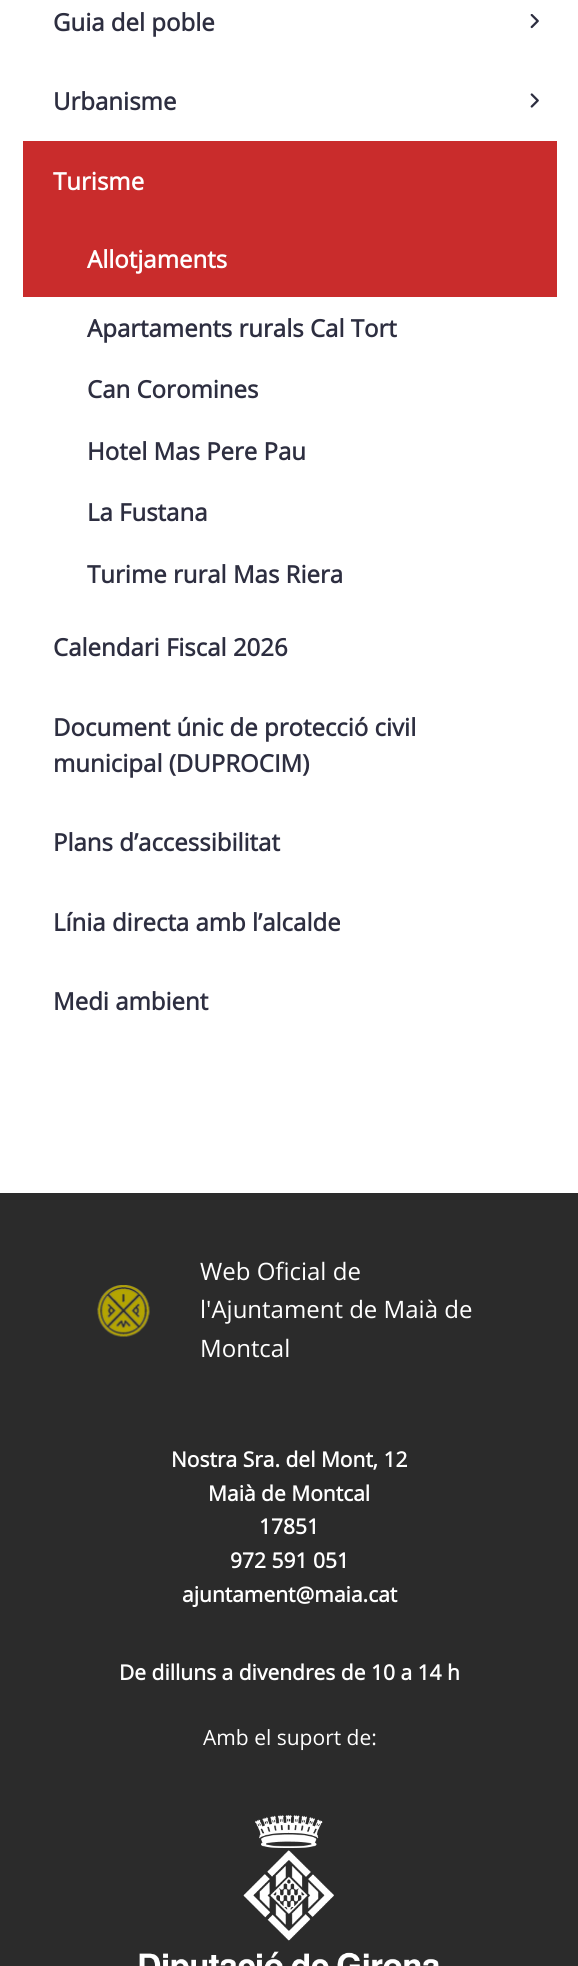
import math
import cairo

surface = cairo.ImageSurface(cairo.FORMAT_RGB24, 578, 1966)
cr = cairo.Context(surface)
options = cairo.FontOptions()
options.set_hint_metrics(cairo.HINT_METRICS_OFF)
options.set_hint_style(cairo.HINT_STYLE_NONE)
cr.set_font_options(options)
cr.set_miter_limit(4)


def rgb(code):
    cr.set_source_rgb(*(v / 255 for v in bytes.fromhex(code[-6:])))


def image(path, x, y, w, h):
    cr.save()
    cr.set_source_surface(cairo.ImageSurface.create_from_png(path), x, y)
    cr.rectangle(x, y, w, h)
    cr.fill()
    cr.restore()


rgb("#ffffff")
cr.paint()
image("img/1.png", 530, 14, 9, 15)
image("img/2.png", 530, 93, 9, 15)
rgb("#c92c2c")
cr.rectangle(23, 141, 534, 156)
cr.fill()
rgb("#2b2b2b")
cr.rectangle(0, 1193, 578, 773)
cr.fill()
image("img/3.png", 97, 1285, 53, 52)
image("img/4.png", 139, 1815, 300, 151)
cr.select_font_face("Open Sans", cairo.FONT_SLANT_NORMAL, cairo.FONT_WEIGHT_BOLD)
cr.set_font_size(24)
rgb("#2d2e40")
cr.move_to(53, 31)
cr.show_text("Guia del poble")
cr.move_to(53, 110)
cr.show_text("Urbanisme")
rgb("#ffffff")
cr.move_to(53, 190)
cr.show_text("Turisme")
cr.move_to(87, 268)
cr.show_text("Allotjaments")
rgb("#2d2e40")
for x, y, s in [
    (87, 337, "Apartaments rurals Cal Tort"),
    (87, 398, "Can Coromines"),
    (87, 460, "Hotel Mas Pere Pau"),
    (87, 521, "La Fustana"),
    (87, 583, "Turime rural Mas Riera"),
    (53, 656, "Calendari Fiscal 2026"),
    (53, 736, "Document únic de protecció civil"),
    (53, 772, "municipal (DUPROCIM)"),
    (53, 851, "Plans d’accessibilitat"),
    (53, 931, "Línia directa amb l’alcalde"),
    (53, 1010, "Medi ambient"),
]:
    cr.move_to(x, y)
    cr.show_text(s)
cr.select_font_face("Open Sans")
rgb("#ffffff")
for x, y, s in [
    (200, 1280, "Web Oficial de"),
    (200, 1318, "l'Ajuntament de Maià de"),
    (200, 1357, "Montcal"),
]:
    cr.move_to(x, y)
    cr.show_text(s)
cr.select_font_face("Open Sans", cairo.FONT_SLANT_NORMAL, cairo.FONT_WEIGHT_BOLD)
cr.set_font_size(21)
for x, y, s in [
    (171, 1467, "Nostra Sra. del Mont, 12"),
    (208, 1501, "Maià de Montcal"),
    (259, 1534, "17851"),
    (230, 1568, "972 591 051"),
    (182, 1602, "ajuntament@maia.cat"),
    (119, 1680, "De dilluns a divendres de 10 a 14 h"),
]:
    cr.move_to(x, y)
    cr.show_text(s)
cr.select_font_face("Open Sans")
cr.move_to(203, 1745)
cr.show_text("Amb el suport de:")
surface.write_to_png("page.png")
